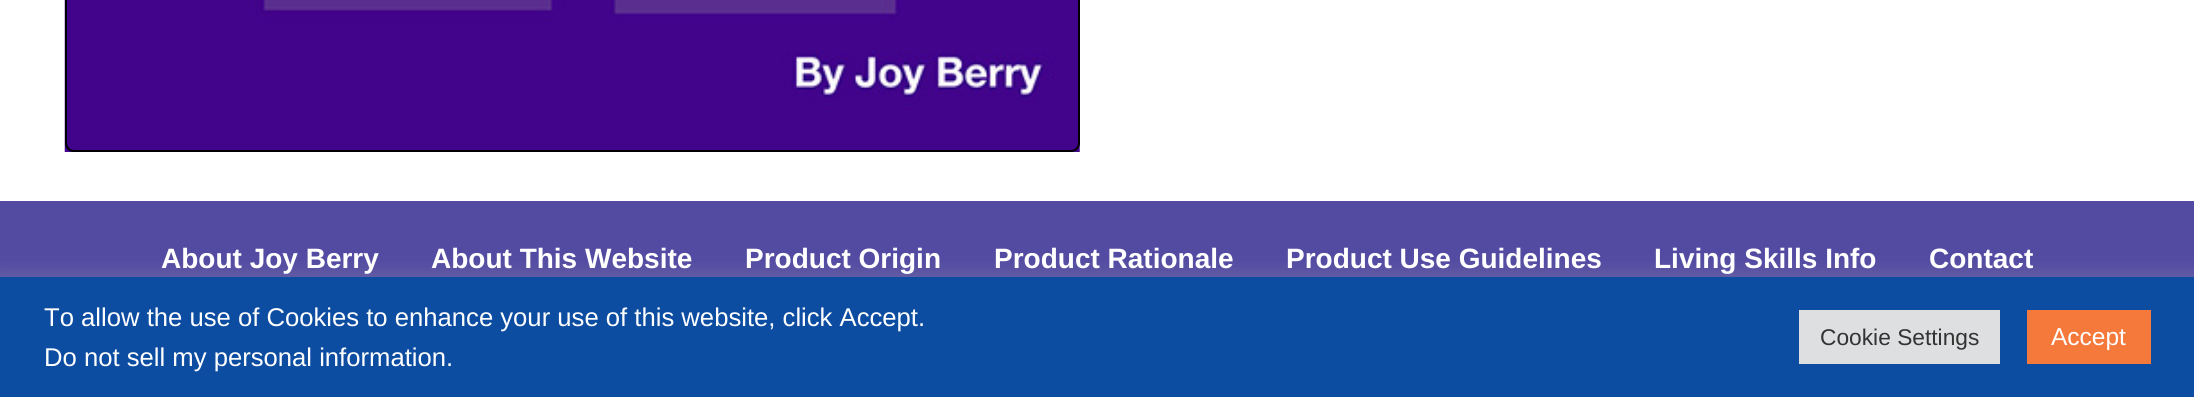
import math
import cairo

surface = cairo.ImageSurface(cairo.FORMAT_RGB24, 2194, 397)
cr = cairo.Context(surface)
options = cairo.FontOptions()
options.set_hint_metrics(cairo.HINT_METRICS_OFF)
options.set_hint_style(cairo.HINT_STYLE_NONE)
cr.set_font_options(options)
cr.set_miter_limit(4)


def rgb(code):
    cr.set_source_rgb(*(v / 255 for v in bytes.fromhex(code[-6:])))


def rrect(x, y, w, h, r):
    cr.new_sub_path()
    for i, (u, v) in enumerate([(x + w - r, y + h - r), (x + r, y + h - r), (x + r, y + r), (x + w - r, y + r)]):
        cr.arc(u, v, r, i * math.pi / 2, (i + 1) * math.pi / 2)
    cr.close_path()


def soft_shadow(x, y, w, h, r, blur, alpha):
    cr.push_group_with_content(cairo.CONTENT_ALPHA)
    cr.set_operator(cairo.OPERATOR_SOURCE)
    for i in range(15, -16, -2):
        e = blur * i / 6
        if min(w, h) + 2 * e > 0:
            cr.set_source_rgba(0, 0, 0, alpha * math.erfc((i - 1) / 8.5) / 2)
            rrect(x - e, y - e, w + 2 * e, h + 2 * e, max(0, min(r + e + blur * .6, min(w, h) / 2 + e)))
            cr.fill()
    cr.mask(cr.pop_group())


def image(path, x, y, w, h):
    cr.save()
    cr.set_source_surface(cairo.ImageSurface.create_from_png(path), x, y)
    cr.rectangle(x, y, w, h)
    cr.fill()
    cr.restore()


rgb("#ffffff")
cr.paint()
image("img/1.png", 64, 0, 1016, 152)
rrect(66, -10, 1013, 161, 8)
rgb("#000000")
cr.stroke()
rgb("#534ba2")
cr.rectangle(0, 201, 2194, 76)
cr.fill()
rgb("#acabab")
soft_shadow(0, 275, 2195, 121, 0, 9, 0.3)
for x, y, w, h, color in [
    (0, 277, 2194, 120, "#0c4da2"),
    (1799, 310, 201, 54, "#dedfe0"),
    (2027, 310, 124, 54, "#f5793b"),
]:
    rgb(color)
    cr.rectangle(x, y, w, h)
    cr.fill()
cr.select_font_face("Liberation Sans", cairo.FONT_SLANT_NORMAL, cairo.FONT_WEIGHT_BOLD)
cr.set_font_size(28)
rgb("#ffffff")
for x, y, s in [
    (161, 268, "About Joy Berry"),
    (431, 268, "About This Website"),
    (745, 268, "Product Origin"),
    (994, 268, "Product Rationale"),
    (1286, 268, "Product Use Guidelines"),
    (1654, 268, "Living Skills Info"),
    (1929, 268, "Contact"),
]:
    cr.move_to(x, y)
    cr.show_text(s)
cr.select_font_face("Liberation Sans")
cr.set_font_size(25.65)
cr.move_to(44, 326)
cr.show_text("To allow the use of Cookies to enhance your use of this website, click Accept.")
cr.move_to(44, 366)
cr.show_text("Do not sell my personal information.")
cr.set_font_size(22.75)
rgb("#333333")
cr.move_to(1820, 345)
cr.show_text("Cookie Settings")
cr.set_font_size(24.5)
rgb("#ffffff")
cr.move_to(2051, 345)
cr.show_text("Accept")
surface.write_to_png("page.png")
